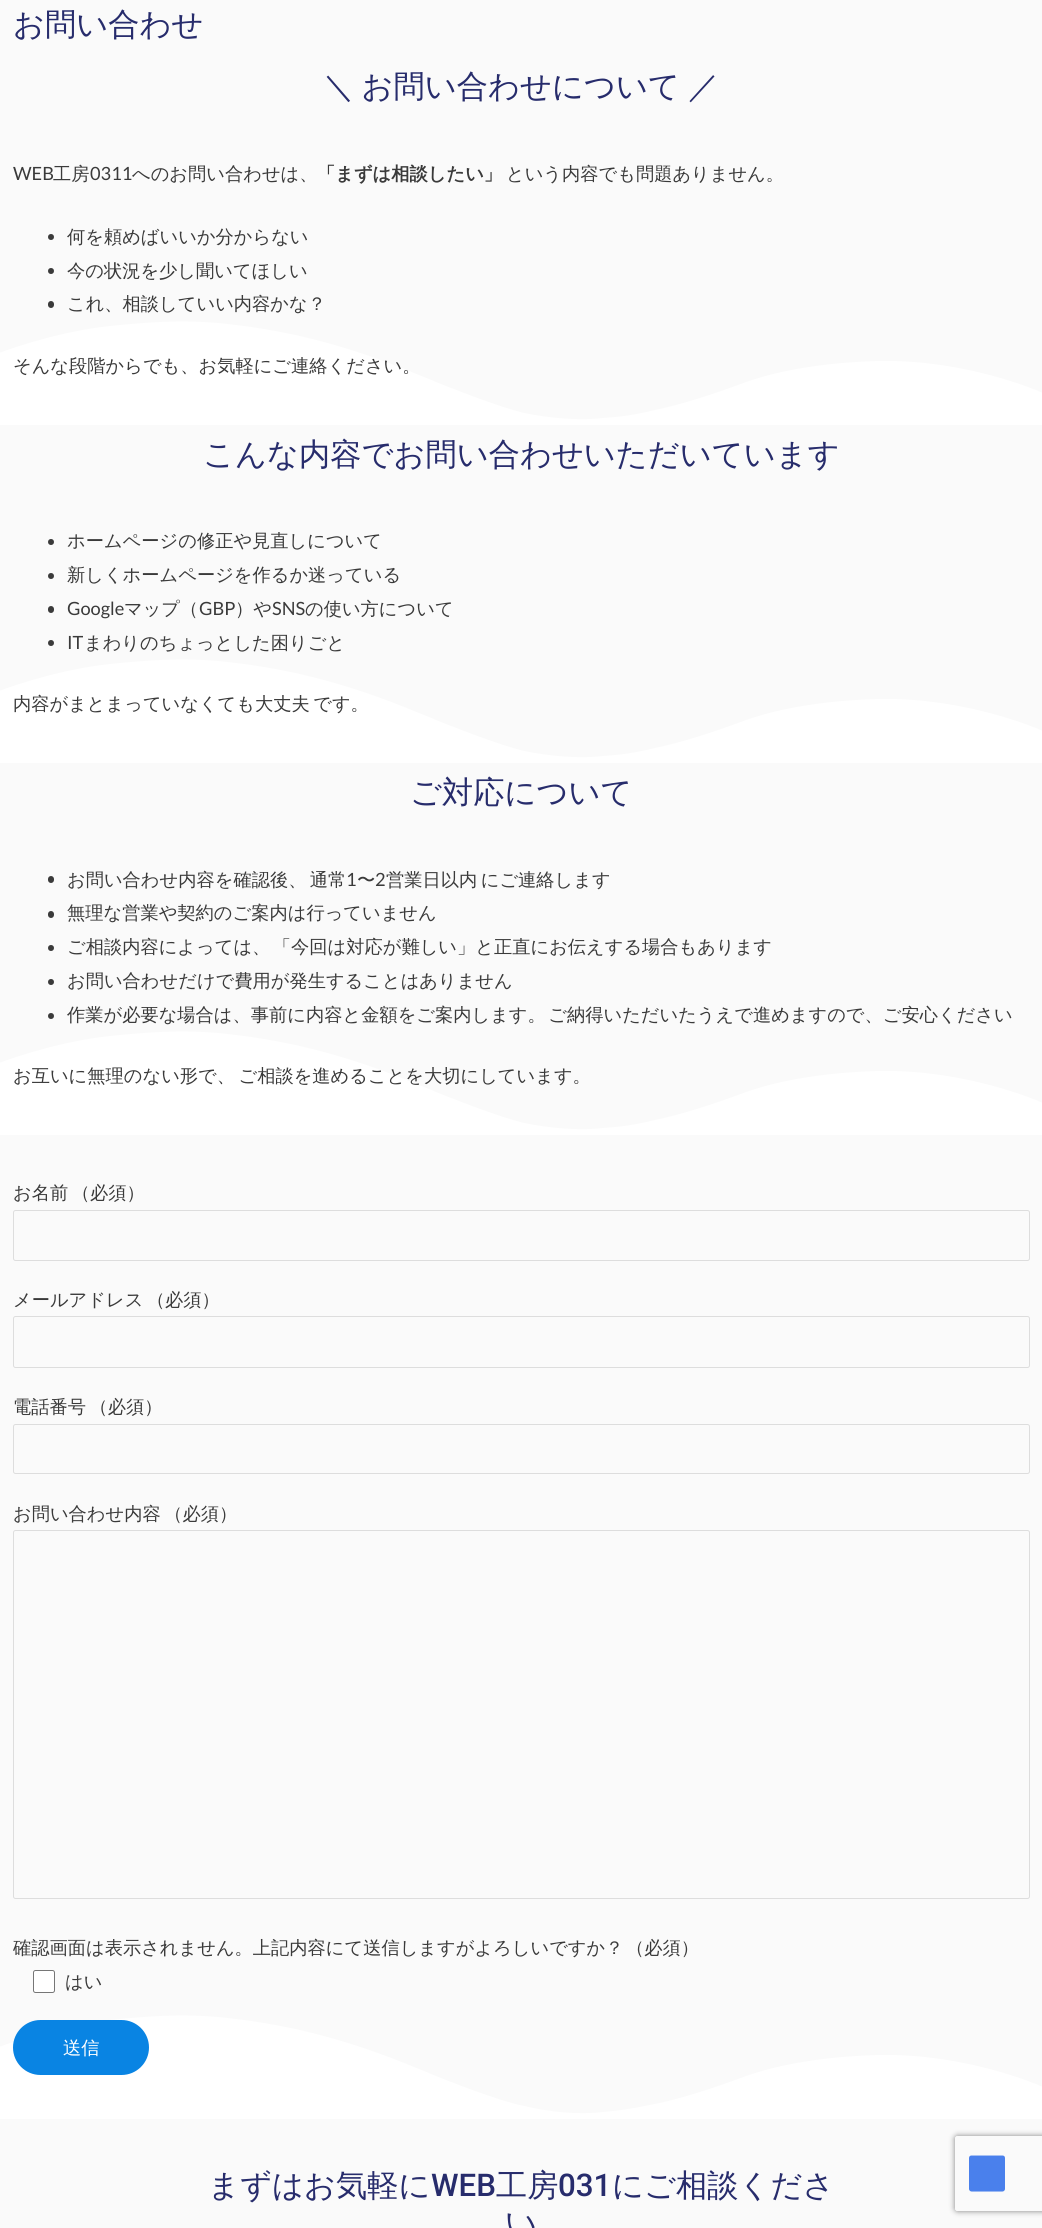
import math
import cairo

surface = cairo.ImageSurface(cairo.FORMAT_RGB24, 1042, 2228)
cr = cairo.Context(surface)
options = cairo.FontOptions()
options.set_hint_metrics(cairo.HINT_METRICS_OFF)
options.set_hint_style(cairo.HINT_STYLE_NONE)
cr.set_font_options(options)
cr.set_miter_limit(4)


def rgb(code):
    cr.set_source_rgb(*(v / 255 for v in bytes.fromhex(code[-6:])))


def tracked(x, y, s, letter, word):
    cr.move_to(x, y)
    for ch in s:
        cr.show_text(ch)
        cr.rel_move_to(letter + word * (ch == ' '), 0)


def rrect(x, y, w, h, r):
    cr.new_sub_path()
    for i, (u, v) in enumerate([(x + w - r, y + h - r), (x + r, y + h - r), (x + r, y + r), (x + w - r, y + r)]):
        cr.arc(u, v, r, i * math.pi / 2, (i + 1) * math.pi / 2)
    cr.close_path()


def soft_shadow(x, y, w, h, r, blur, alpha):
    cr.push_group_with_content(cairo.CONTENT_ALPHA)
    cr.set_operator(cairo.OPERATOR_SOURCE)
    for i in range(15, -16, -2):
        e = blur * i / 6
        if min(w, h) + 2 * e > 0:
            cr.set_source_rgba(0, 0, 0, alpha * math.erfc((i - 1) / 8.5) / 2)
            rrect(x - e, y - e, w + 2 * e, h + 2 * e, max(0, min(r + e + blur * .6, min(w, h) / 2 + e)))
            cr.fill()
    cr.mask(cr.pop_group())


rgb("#fafafa")
cr.paint()
rgb("#3a3a3a")
cr.arc(51, 237, 3, 0, 2 * math.pi)
cr.fill()
cr.arc(51, 271, 3, 0, 2 * math.pi)
cr.fill()
rrect(48, 301, 6, 7, 3)
cr.fill()
rgb("#ffffff")
cr.new_path()
cr.move_to(603, 418)
cr.curve_to(579, 421, 549, 418, 524, 413)
cr.curve_to(499, 407, 450, 388, 419, 375)
cr.curve_to(340, 342, 279, 329, 218, 323)
cr.curve_to(193, 321, 167, 320, 110, 326)
cr.curve_to(53, 332, -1, 353, -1, 353)
cr.line_to(-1, 425)
cr.line_to(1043, 425)
cr.line_to(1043, 393)
cr.curve_to(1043, 393, 968, 359, 878, 361)
cr.curve_to(837, 362, 781, 368, 738, 385)
cr.curve_to(716, 393, 684, 404, 655, 410)
cr.curve_to(626, 417, 614, 417, 603, 418)
cr.close_path()
cr.fill()
rgb("#3a3a3a")
cr.arc(51, 542, 3, 0, 2 * math.pi)
cr.fill()
cr.arc(51, 576, 3, 0, 2 * math.pi)
cr.fill()
rrect(48, 606, 6, 7, 3)
cr.fill()
cr.arc(51, 643, 3, 0, 2 * math.pi)
cr.fill()
rgb("#ffffff")
cr.new_path()
cr.move_to(603, 756)
cr.curve_to(579, 759, 549, 756, 524, 751)
cr.curve_to(499, 745, 450, 726, 419, 713)
cr.curve_to(340, 680, 279, 667, 218, 661)
cr.curve_to(193, 659, 167, 658, 110, 664)
cr.curve_to(53, 670, -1, 691, -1, 691)
cr.line_to(-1, 763)
cr.line_to(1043, 763)
cr.line_to(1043, 731)
cr.curve_to(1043, 731, 968, 697, 878, 699)
cr.curve_to(837, 700, 781, 706, 738, 723)
cr.curve_to(716, 731, 684, 742, 655, 748)
cr.curve_to(626, 755, 614, 755, 603, 756)
cr.close_path()
cr.fill()
rgb("#3a3a3a")
rrect(48, 876, 6, 7, 3)
cr.fill()
rrect(48, 911, 6, 7, 3)
cr.fill()
cr.arc(51, 948, 3, 0, 2 * math.pi)
cr.fill()
cr.arc(51, 982, 3, 0, 2 * math.pi)
cr.fill()
cr.arc(51, 1016, 3, 0, 2 * math.pi)
cr.fill()
rgb("#ffffff")
cr.new_path()
cr.move_to(603, 1128)
cr.curve_to(579, 1131, 549, 1128, 524, 1123)
cr.curve_to(499, 1117, 450, 1098, 419, 1085)
cr.curve_to(340, 1052, 279, 1039, 218, 1033)
cr.curve_to(193, 1031, 167, 1030, 110, 1036)
cr.curve_to(53, 1042, -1, 1063, -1, 1063)
cr.line_to(-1, 1135)
cr.line_to(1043, 1135)
cr.line_to(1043, 1103)
cr.curve_to(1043, 1103, 968, 1069, 878, 1071)
cr.curve_to(837, 1072, 781, 1078, 738, 1095)
cr.curve_to(716, 1103, 684, 1114, 655, 1120)
cr.curve_to(626, 1127, 614, 1127, 603, 1128)
cr.close_path()
cr.fill()
rrect(13.5, 1210.5, 1016, 50, 2)
rgb("#dddddd")
cr.set_line_width(1)
cr.stroke()
rrect(13.5, 1316.5, 1016, 51, 2)
cr.stroke()
rrect(13.5, 1424.5, 1016, 49, 2)
cr.stroke()
rrect(13.5, 1530.5, 1016, 368, 2)
cr.stroke()
rgb("#ffffff")
rrect(33.5, 1970.5, 21, 22, 2)
cr.fill_preserve()
rgb("#767676")
cr.stroke()
rgb("#ffffff")
cr.new_path()
cr.move_to(603, 2112)
cr.curve_to(579, 2115, 549, 2112, 524, 2106)
cr.curve_to(499, 2101, 450, 2082, 419, 2069)
cr.curve_to(340, 2036, 279, 2023, 218, 2017)
cr.curve_to(193, 2015, 167, 2014, 110, 2020)
cr.curve_to(53, 2026, -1, 2047, -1, 2047)
cr.line_to(-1, 2119)
cr.line_to(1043, 2119)
cr.line_to(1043, 2087)
cr.curve_to(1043, 2087, 968, 2053, 878, 2055)
cr.curve_to(837, 2056, 781, 2062, 738, 2079)
cr.curve_to(716, 2087, 684, 2098, 655, 2104)
cr.curve_to(626, 2110, 614, 2111, 603, 2112)
cr.close_path()
cr.fill()
rgb("#0984e3")
rrect(13, 2020, 136, 55, 27.5)
cr.fill()
cr.save()
cr.set_fill_rule(cairo.FILL_RULE_EVEN_ODD)
cr.new_path()
cr.move_to(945, 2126)
cr.line_to(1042, 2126)
cr.line_to(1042, 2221)
cr.line_to(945, 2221)
cr.close_path()
cr.move_to(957.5, 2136)
cr.line_to(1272.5, 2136)
cr.curve_to(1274, 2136, 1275, 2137, 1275, 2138.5)
cr.line_to(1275, 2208.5)
cr.curve_to(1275, 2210, 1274, 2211, 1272.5, 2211)
cr.line_to(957.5, 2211)
cr.curve_to(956, 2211, 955, 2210, 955, 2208.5)
cr.line_to(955, 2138.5)
cr.curve_to(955, 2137, 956, 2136, 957.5, 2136)
cr.close_path()
cr.clip()
rgb("#808080")
soft_shadow(955, 2136, 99, 75, 2.5, 3, 1)
cr.restore()
rgb("#4a80ec")
cr.new_path()
cr.move_to(1002.5, 2191.5)
cr.line_to(971.5, 2191.5)
cr.curve_to(970, 2191.5, 969, 2190, 969, 2189)
cr.line_to(969, 2158)
cr.curve_to(969, 2156.5, 970, 2155.5, 971.5, 2155.5)
cr.line_to(1002.5, 2155.5)
cr.curve_to(1004, 2155.5, 1005, 2156.5, 1005, 2158)
cr.line_to(1005, 2189)
cr.curve_to(1005, 2190, 1004, 2191.5, 1002.5, 2191.5)
cr.close_path()
cr.fill()
cr.select_font_face("WenQuanYi Zen Hei Medium")
cr.set_font_size(31.25)
rgb("#272c6c")
cr.move_to(13, 35)
cr.show_text("お問い合わせ")
tracked(323, 97, "＼ お問い合わせについて", 0, -2)
cr.move_to(688, 97)
cr.show_text("／")
cr.select_font_face("Lato")
cr.set_font_size(18.25)
rgb("#3a3a3a")
cr.move_to(13, 180)
cr.show_text("WEB")
cr.select_font_face("WenQuanYi Zen Hei Medium")
cr.move_to(53, 180)
cr.show_text("工房")
cr.select_font_face("Lato")
cr.move_to(90, 180)
cr.show_text("0311")
cr.select_font_face("WenQuanYi Zen Hei Medium")
cr.move_to(132, 180)
cr.show_text("へのお問い合わせは、")
cr.select_font_face("WenQuanYi Zen Hei", cairo.FONT_SLANT_NORMAL, cairo.FONT_WEIGHT_BOLD)
cr.move_to(317, 180)
cr.show_text("「まずは相談したい」")
cr.select_font_face("WenQuanYi Zen Hei Medium")
for x, y, s in [
    (506, 180, "という内容でも問題ありません。"),
    (67, 243, "何を頼めばいいか分からない"),
    (67, 277, "今の状況を少し聞いてほしい"),
    (67, 310, "これ、相談していい内容かな？"),
    (13, 372, "そんな段階からでも、お気軽にご連絡ください。"),
]:
    cr.move_to(x, y)
    cr.show_text(s)
cr.set_font_size(31.25)
rgb("#272c6c")
cr.move_to(203, 465)
cr.show_text("こんな内容でお問い合わせいただいています")
cr.set_font_size(18.25)
rgb("#3a3a3a")
cr.move_to(67, 547)
cr.show_text("ホームページの修正や見直しについて")
cr.move_to(67, 581)
cr.show_text("新しくホームページを作るか迷っている")
cr.select_font_face("Lato")
cr.move_to(67, 615)
cr.show_text("Google")
cr.select_font_face("WenQuanYi Zen Hei Medium")
cr.move_to(124, 615)
cr.show_text("マップ（")
cr.select_font_face("Lato")
cr.move_to(199, 615)
cr.show_text("GBP")
cr.select_font_face("WenQuanYi Zen Hei Medium")
cr.move_to(235, 615)
cr.show_text("）や")
cr.select_font_face("Lato")
cr.move_to(272, 615)
cr.show_text("SNS")
cr.select_font_face("WenQuanYi Zen Hei Medium")
cr.move_to(305, 615)
cr.show_text("の使い方について")
cr.select_font_face("Lato")
cr.move_to(67, 649)
cr.show_text("IT")
cr.select_font_face("WenQuanYi Zen Hei Medium")
cr.move_to(84, 649)
cr.show_text("まわりのちょっとした困りごと")
tracked(13, 710, "内容がまとまっていなくても大丈夫 です。", 0, -2)
cr.set_font_size(31.25)
rgb("#272c6c")
cr.move_to(410, 803)
cr.show_text("ご対応について")
cr.set_font_size(18.25)
rgb("#3a3a3a")
tracked(67, 886, "お問い合わせ内容を確認後、 通常", 0, -2)
cr.select_font_face("Lato")
cr.move_to(346, 886)
cr.show_text("1")
cr.select_font_face("WenQuanYi Zen Hei Medium")
cr.move_to(357, 886)
cr.show_text("〜")
cr.select_font_face("Lato")
cr.move_to(375, 886)
cr.show_text("2")
cr.select_font_face("WenQuanYi Zen Hei Medium")
tracked(386, 886, "営業日以内 にご連絡します", 0, -2)
cr.move_to(67, 919)
cr.show_text("無理な営業や契約のご案内は行っていません")
tracked(67, 953, "ご相談内容によっては、 「今回は対応が難しい」と正直にお伝えする場合もあります", 0, -3)
cr.move_to(67, 987)
cr.show_text("お問い合わせだけで費用が発生することはありません")
tracked(67, 1021, "作業が必要な場合は、事前に内容と金額をご案内します。 ご納得いただいたうえで進めますので、ご安心ください", 0, -3)
for x, y, s in [
    (13, 1082, "お互いに無理のない形で、 ご相談を進めることを大切にしています。"),
    (13, 1199, "お名前 （必須）"),
    (13, 1306, "メールアドレス （必須）"),
    (13, 1413, "電話番号 （必須）"),
    (13, 1520, "お問い合わせ内容 （必須）"),
]:
    tracked(x, y, s, 0, -2)
tracked(13, 1954, "確認画面は表示されません。上記内容にて送信しますがよろしいですか？ （必須）", 0, -3)
cr.move_to(65, 1988)
cr.show_text("はい")
rgb("#ffffff")
cr.move_to(63, 2054)
cr.show_text("送信")
cr.set_font_size(31.25)
rgb("#272c6c")
cr.move_to(208, 2196)
cr.show_text("まずはお気軽に")
cr.select_font_face("Roboto Medium")
cr.move_to(431, 2196)
cr.show_text("WEB")
cr.select_font_face("WenQuanYi Zen Hei Medium")
cr.move_to(496, 2196)
cr.show_text("工房")
cr.select_font_face("Roboto Medium")
cr.move_to(558, 2196)
cr.show_text("031")
cr.select_font_face("WenQuanYi Zen Hei Medium")
cr.move_to(612, 2196)
cr.show_text("にご相談くださ")
cr.move_to(505, 2233)
cr.show_text("い")
surface.write_to_png("page.png")
